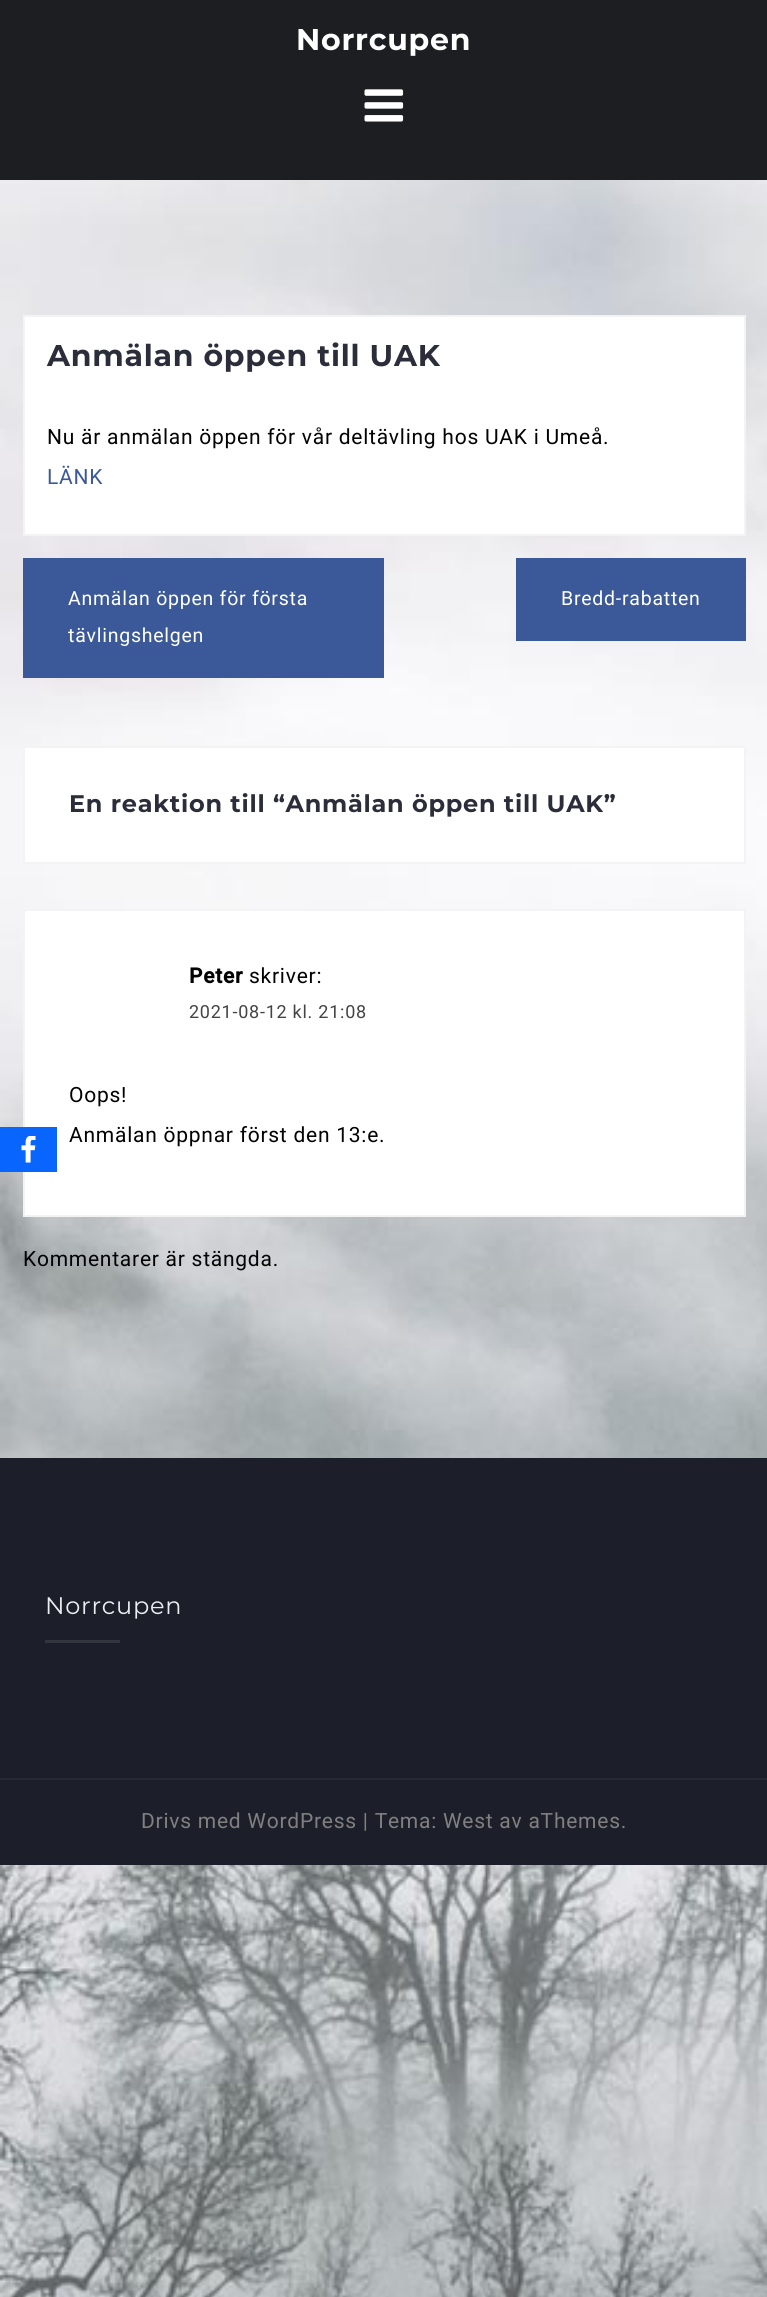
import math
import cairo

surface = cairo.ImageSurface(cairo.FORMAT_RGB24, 767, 2297)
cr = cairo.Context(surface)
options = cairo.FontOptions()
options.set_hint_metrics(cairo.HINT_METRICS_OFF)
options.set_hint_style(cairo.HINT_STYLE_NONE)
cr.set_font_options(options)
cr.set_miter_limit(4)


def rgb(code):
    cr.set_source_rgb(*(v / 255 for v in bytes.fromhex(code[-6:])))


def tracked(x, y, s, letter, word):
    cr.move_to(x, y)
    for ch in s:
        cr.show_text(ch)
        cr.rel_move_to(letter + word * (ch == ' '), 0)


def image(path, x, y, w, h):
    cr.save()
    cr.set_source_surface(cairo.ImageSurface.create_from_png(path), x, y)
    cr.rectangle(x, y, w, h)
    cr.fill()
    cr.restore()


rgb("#ffffff")
cr.paint()
image("img/1.png", 0, 180, 767, 2117)
rgb("#1c1e21")
cr.rectangle(0, 0, 767, 180)
cr.fill()
image("img/2.png", 364, 89, 40, 33)
rgb("#ffffff")
cr.rectangle(24, 316, 721, 219)
cr.fill_preserve()
rgb("#f3f3f3")
cr.stroke()
rgb("#3b5998")
cr.rectangle(23, 558, 361, 120)
cr.fill()
cr.rectangle(516, 558, 230, 83)
cr.fill()
rgb("#ffffff")
cr.rectangle(24, 747, 721, 116)
cr.fill_preserve()
rgb("#f3f3f3")
cr.stroke()
rgb("#ffffff")
cr.rectangle(24, 910, 721, 306)
cr.fill_preserve()
rgb("#f3f3f3")
cr.stroke()
for x, y, w, h, color in [
    (0, 1458, 767, 320, "#1c1e29"),
    (45, 1640, 75, 3, "#33353e"),
    (0, 1780, 767, 85, "#1c1e29"),
    (0, 1778, 767, 2, "#272934"),
    (0, 1127, 57, 45, "#0866ff"),
]:
    rgb(color)
    cr.rectangle(x, y, w, h)
    cr.fill()
image("img/3.png", 21, 1136, 15, 27)
cr.select_font_face("Montserrat", cairo.FONT_SLANT_NORMAL, cairo.FONT_WEIGHT_BOLD)
cr.set_font_size(30)
rgb("#ffffff")
tracked(296, 50, "Norrcupen", 0.75, 0)
rgb("#2b2d3a")
tracked(47, 366, "Anmälan öppen till UAK", 0.75, 0)
cr.select_font_face("Roboto")
cr.set_font_size(21)
rgb("#020202")
tracked(47, 444, "Nu är anmälan öppen för vår deltävling hos UAK i Umeå.", 0.75, 0)
rgb("#3b5998")
tracked(47, 484, "LÄNK", 0.75, 0)
cr.set_font_size(19.5)
rgb("#ffffff")
for x, y, s in [
    (68, 605, "Anmälan öppen för första"),
    (68, 642, "tävlingshelgen"),
    (561, 605, "Bredd-rabatten"),
]:
    tracked(x, y, s, 0.75, 0)
cr.select_font_face("Montserrat", cairo.FONT_SLANT_NORMAL, cairo.FONT_WEIGHT_BOLD)
cr.set_font_size(24)
rgb("#2b2d3a")
tracked(69, 812, "En reaktion till “Anmälan öppen till UAK”", 0.75, 0)
cr.select_font_face("Roboto", cairo.FONT_SLANT_NORMAL, cairo.FONT_WEIGHT_BOLD)
cr.set_font_size(21)
rgb("#020202")
tracked(189, 983, "Peter", 0.75, 0)
cr.select_font_face("Roboto")
tracked(249, 983, "skriver:", 0.75, 0)
cr.set_font_size(18)
rgb("#444444")
tracked(189, 1018, "2021-08-12 kl. 21:08", 0.75, 0)
cr.set_font_size(21)
rgb("#020202")
for x, y, s in [
    (69, 1102, "Oops!"),
    (69, 1142, "Anmälan öppnar först den 13:e."),
    (23, 1266, "Kommentarer är stängda."),
]:
    tracked(x, y, s, 0.75, 0)
cr.select_font_face("Montserrat")
cr.set_font_size(24)
rgb("#ebeef1")
tracked(45, 1614, "Norrcupen", 0.75, 0)
cr.select_font_face("Roboto")
cr.set_font_size(21)
rgb("#808080")
tracked(141, 1828, "Drivs med WordPress | Tema: West av aThemes.", 0.75, 0)
surface.write_to_png("page.png")
